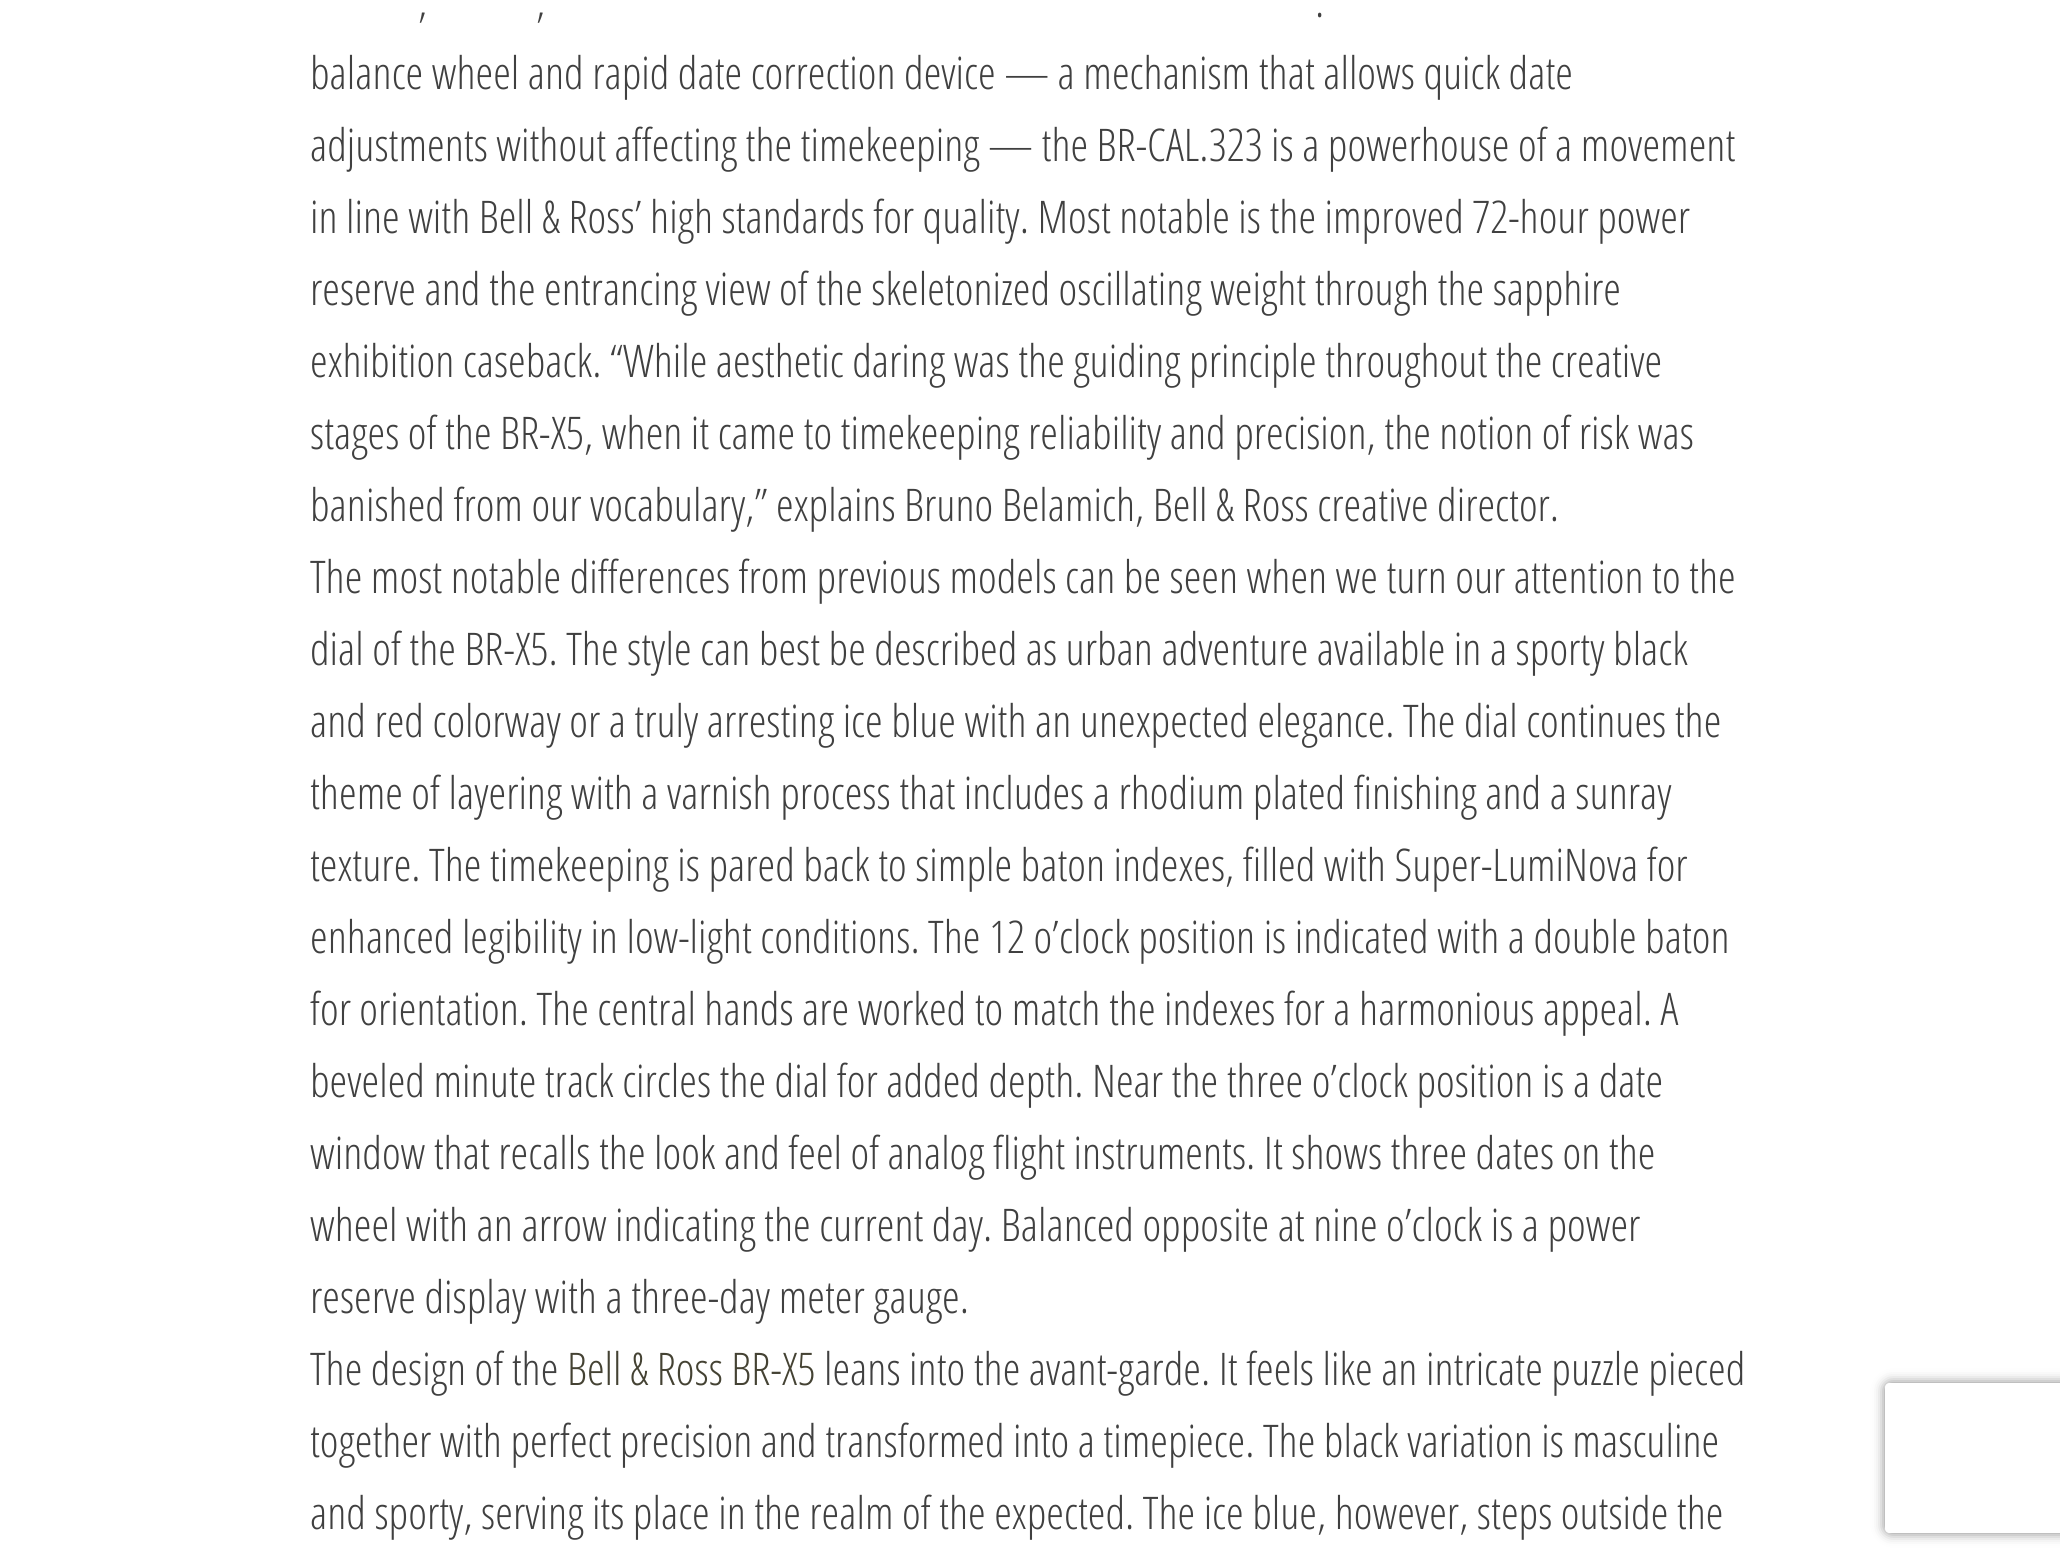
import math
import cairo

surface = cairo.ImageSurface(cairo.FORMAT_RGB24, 2060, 1567)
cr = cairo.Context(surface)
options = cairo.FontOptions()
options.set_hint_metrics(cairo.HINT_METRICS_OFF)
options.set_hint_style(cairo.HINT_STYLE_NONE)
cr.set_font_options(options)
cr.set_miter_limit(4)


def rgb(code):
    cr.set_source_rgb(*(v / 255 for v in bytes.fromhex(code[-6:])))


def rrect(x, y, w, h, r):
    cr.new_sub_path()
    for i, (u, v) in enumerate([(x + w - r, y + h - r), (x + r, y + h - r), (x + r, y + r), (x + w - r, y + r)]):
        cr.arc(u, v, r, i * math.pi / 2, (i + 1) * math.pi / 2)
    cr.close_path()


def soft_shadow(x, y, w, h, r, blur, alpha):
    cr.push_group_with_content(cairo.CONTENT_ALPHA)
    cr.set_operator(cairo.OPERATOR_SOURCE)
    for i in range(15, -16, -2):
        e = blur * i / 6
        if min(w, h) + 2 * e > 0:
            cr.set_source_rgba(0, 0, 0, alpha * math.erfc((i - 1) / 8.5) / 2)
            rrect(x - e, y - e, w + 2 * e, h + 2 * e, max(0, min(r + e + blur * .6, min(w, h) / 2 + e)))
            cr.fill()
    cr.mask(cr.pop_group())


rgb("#ffffff")
cr.paint()
cr.save()
cr.set_fill_rule(cairo.FILL_RULE_EVEN_ODD)
cr.new_path()
cr.move_to(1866, 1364)
cr.line_to(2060, 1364)
cr.line_to(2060, 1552)
cr.line_to(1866, 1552)
cr.close_path()
cr.move_to(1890, 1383)
cr.line_to(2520, 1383)
cr.curve_to(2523, 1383, 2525, 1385, 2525, 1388)
cr.line_to(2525, 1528)
cr.curve_to(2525, 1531, 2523, 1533, 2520, 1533)
cr.line_to(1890, 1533)
cr.curve_to(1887, 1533, 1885, 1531, 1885, 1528)
cr.line_to(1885, 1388)
cr.curve_to(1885, 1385, 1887, 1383, 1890, 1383)
cr.close_path()
cr.clip()
rgb("#808080")
soft_shadow(1885, 1383, 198, 150, 5, 6, 1)
cr.restore()
cr.select_font_face("Open Sans Condensed Light")
cr.set_font_size(45)
rgb("#404040")
for x, y, s in [
    (418, 17, ","),
    (536, 17, ","),
    (1315, 17, "."),
    (310, 89, "balance wheel and rapid date correction device — a mechanism that allows quick date"),
    (310, 161, "adjustments without affecting the timekeeping — the BR-CAL.323 is a powerhouse of a movement"),
    (310, 233, "in line with Bell & Ross’ high standards for quality. Most notable is the improved 72-hour power"),
    (310, 305, "reserve and the entrancing view of the skeletonized oscillating weight through the sapphire"),
    (310, 377, "exhibition caseback. “While aesthetic daring was the guiding principle throughout the creative"),
    (310, 449, "stages of the BR-X5, when it came to timekeeping reliability and precision, the notion of risk was"),
    (310, 521, "banished from our vocabulary,” explains Bruno Belamich, Bell & Ross creative director."),
    (310, 593, "The most notable differences from previous models can be seen when we turn our attention to the"),
    (310, 665, "dial of the BR-X5. The style can best be described as urban adventure available in a sporty black"),
    (310, 737, "and red colorway or a truly arresting ice blue with an unexpected elegance. The dial continues the"),
    (310, 809, "theme of layering with a varnish process that includes a rhodium plated finishing and a sunray"),
    (310, 881, "texture. The timekeeping is pared back to simple baton indexes, filled with Super-LumiNova for"),
    (310, 953, "enhanced legibility in low-light conditions. The 12 o’clock position is indicated with a double baton"),
    (310, 1025, "for orientation. The central hands are worked to match the indexes for a harmonious appeal. A"),
    (310, 1097, "beveled minute track circles the dial for added depth. Near the three o’clock position is a date"),
    (310, 1169, "window that recalls the look and feel of analog flight instruments. It shows three dates on the"),
    (310, 1241, "wheel with an arrow indicating the current day. Balanced opposite at nine o’clock is a power"),
    (310, 1313, "reserve display with a three-day meter gauge."),
    (310, 1385, "The design of the"),
]:
    cr.move_to(x, y)
    cr.show_text(s)
rgb("#444233")
cr.move_to(567, 1385)
cr.show_text("Bell & Ross BR-X5")
rgb("#404040")
for x, y, s in [
    (824, 1385, "leans into the avant-garde. It feels like an intricate puzzle pieced"),
    (310, 1457, "together with perfect precision and transformed into a timepiece. The black variation is masculine"),
    (310, 1529, "and sporty, serving its place in the realm of the expected. The ice blue, however, steps outside the"),
]:
    cr.move_to(x, y)
    cr.show_text(s)
surface.write_to_png("page.png")
